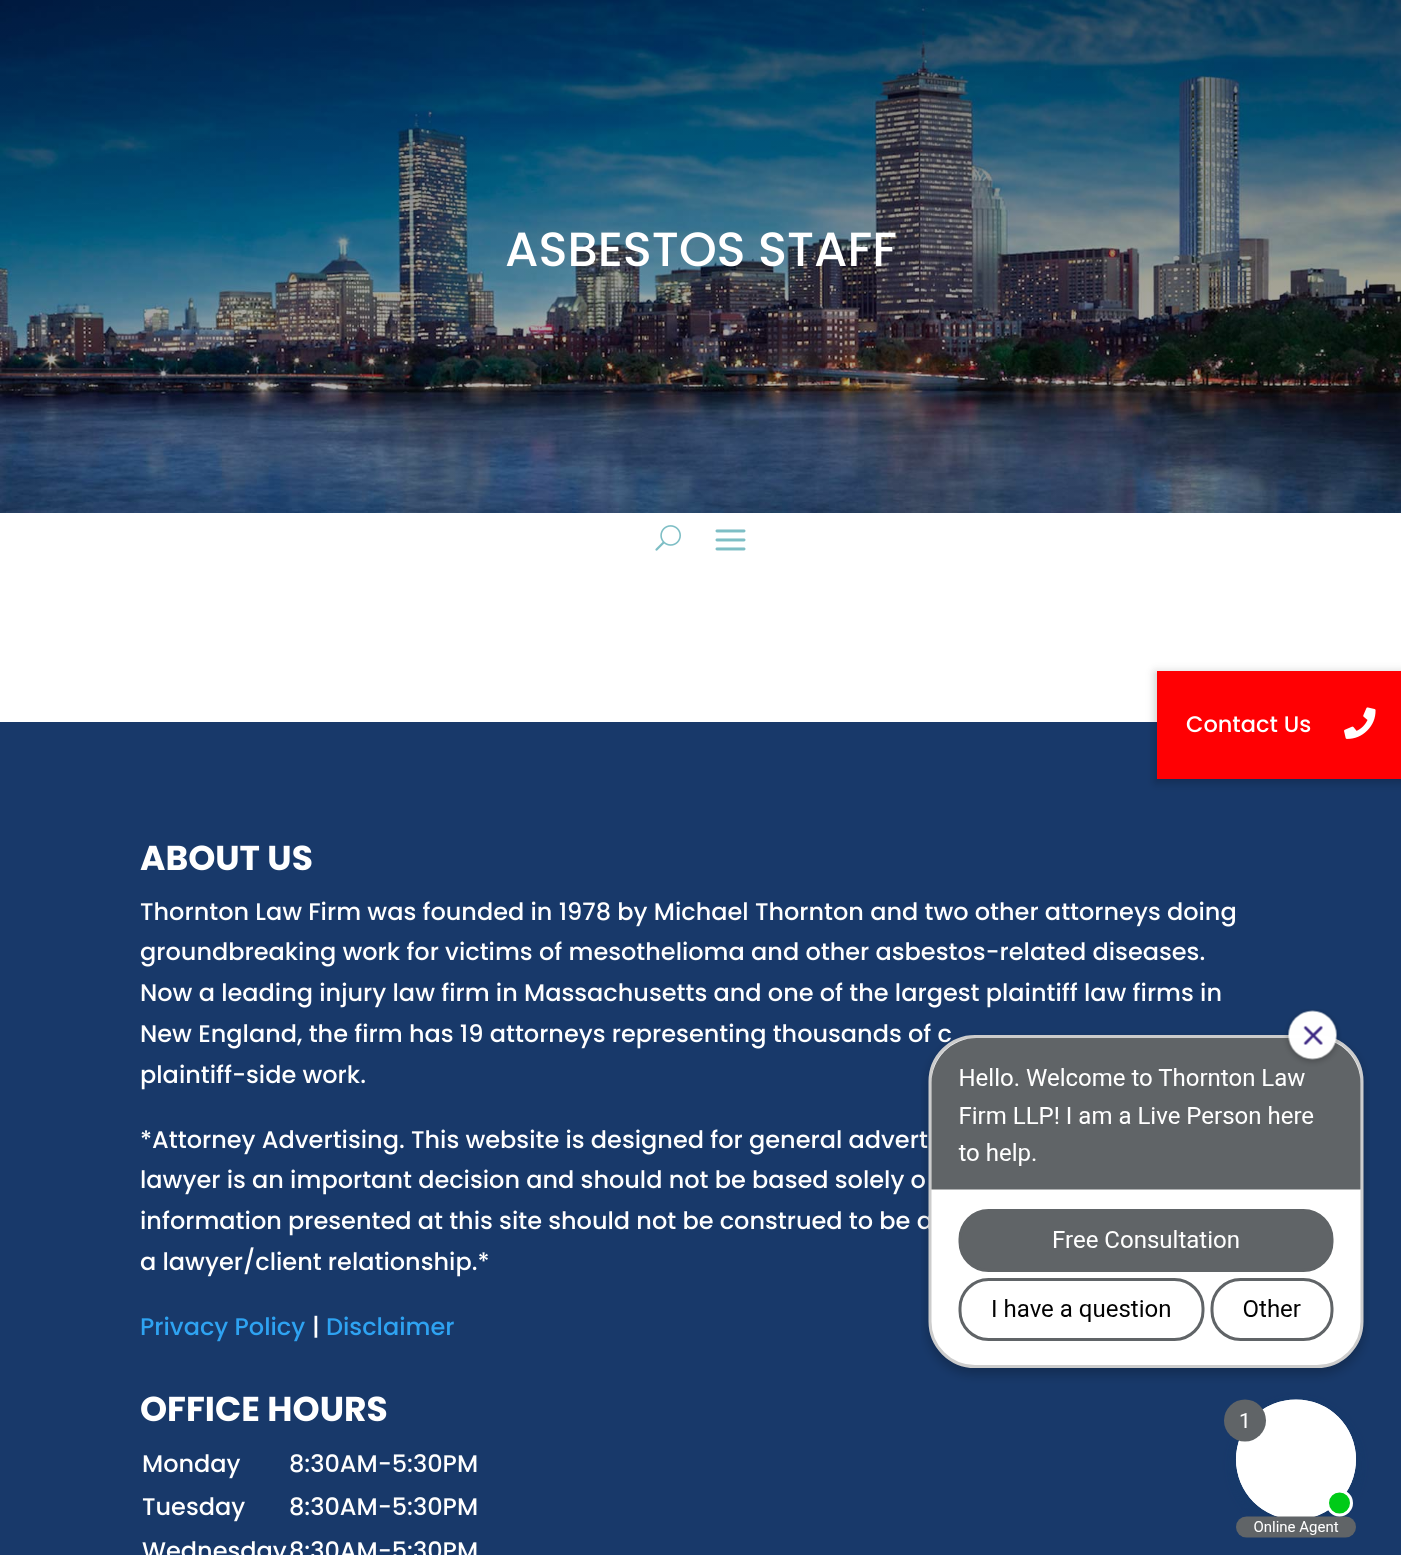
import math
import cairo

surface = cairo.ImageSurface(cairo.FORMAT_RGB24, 1401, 1555)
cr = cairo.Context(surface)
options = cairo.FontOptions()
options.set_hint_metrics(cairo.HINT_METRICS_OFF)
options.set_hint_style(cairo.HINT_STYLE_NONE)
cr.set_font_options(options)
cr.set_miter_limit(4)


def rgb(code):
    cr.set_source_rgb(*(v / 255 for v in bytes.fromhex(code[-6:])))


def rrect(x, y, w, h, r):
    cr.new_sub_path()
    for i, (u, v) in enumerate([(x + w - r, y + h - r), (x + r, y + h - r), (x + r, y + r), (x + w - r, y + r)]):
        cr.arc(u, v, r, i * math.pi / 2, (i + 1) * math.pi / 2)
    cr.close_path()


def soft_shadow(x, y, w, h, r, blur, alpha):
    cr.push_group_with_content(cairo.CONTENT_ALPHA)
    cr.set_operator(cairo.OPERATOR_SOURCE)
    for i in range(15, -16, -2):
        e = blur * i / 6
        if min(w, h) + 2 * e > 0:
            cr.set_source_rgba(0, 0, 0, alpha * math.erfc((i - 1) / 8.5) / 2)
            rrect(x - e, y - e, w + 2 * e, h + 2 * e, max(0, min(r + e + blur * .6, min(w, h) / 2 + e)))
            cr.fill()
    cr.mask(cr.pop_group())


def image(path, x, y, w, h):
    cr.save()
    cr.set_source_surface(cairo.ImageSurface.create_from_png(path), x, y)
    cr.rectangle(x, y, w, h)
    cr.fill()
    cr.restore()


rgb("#ffffff")
cr.paint()
image("img/1.png", 0, 0, 1401, 513)
image("img/2.png", 655, 525, 26, 26)
image("img/3.png", 715, 529, 31, 22)
rgb("#18396a")
cr.rectangle(0, 722, 1401, 833)
cr.fill()
rgb("#000000")
soft_shadow(1155, 672, 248, 111, 0, 4.5, 0.2)
rgb("#ff0003")
cr.rectangle(1157, 671, 244, 108)
cr.fill()
image("img/4.png", 1344, 707, 32, 32)
cr.select_font_face("Poppins Medium")
cr.set_font_size(48)
rgb("#ffffff")
cr.move_to(505, 266)
cr.show_text("ASBESTOS STAFF")
cr.select_font_face("Poppins", cairo.FONT_SLANT_NORMAL, cairo.FONT_WEIGHT_BOLD)
cr.set_font_size(34.5)
cr.move_to(140, 870)
cr.show_text("ABOUT US")
cr.select_font_face("Poppins Medium")
cr.set_font_size(24)
for x, y, s in [
    (140, 920, "Thornton Law Firm was founded in 1978 by Michael Thornton and two other attorneys doing"),
    (140, 960, "groundbreaking work for victims of mesothelioma and other asbestos-related diseases."),
    (140, 1001, "Now a leading injury law firm in Massachusetts and one of the largest plaintiff law firms in"),
    (140, 1042, "New England, the firm has 19 attorneys representing thousands of c"),
    (140, 1083, "plaintiff-side work."),
    (140, 1148, "*Attorney Advertising. This website is designed for general advert"),
    (140, 1188, "lawyer is an important decision and should not be based solely o"),
    (140, 1229, "information presented at this site should not be construed to be a"),
    (140, 1270, "a lawyer/client relationship.*"),
]:
    cr.move_to(x, y)
    cr.show_text(s)
rgb("#2ea3f2")
cr.move_to(140, 1335)
cr.show_text("Privacy Policy")
rgb("#ffffff")
cr.move_to(312, 1335)
cr.show_text("|")
rgb("#2ea3f2")
cr.move_to(326, 1335)
cr.show_text("Disclaimer")
cr.select_font_face("Poppins", cairo.FONT_SLANT_NORMAL, cairo.FONT_WEIGHT_BOLD)
cr.set_font_size(34.5)
rgb("#ffffff")
cr.move_to(140, 1421)
cr.show_text("OFFICE HOURS")
cr.select_font_face("Poppins Medium")
cr.set_font_size(24)
for x, y, s in [
    (142, 1472, "Monday"),
    (289, 1472, "8:30AM-5:30PM"),
    (142, 1515, "Tuesday"),
    (289, 1515, "8:30AM-5:30PM"),
    (142, 1559, "Wednesday"),
    (289, 1559, "8:30AM-5:30PM"),
]:
    cr.move_to(x, y)
    cr.show_text(s)
cr.set_font_size(22.5)
cr.move_to(1186, 732)
cr.show_text("Contact Us")
image("img/5.png", 921, 1009, 449, 529)
surface.write_to_png("page.png")
